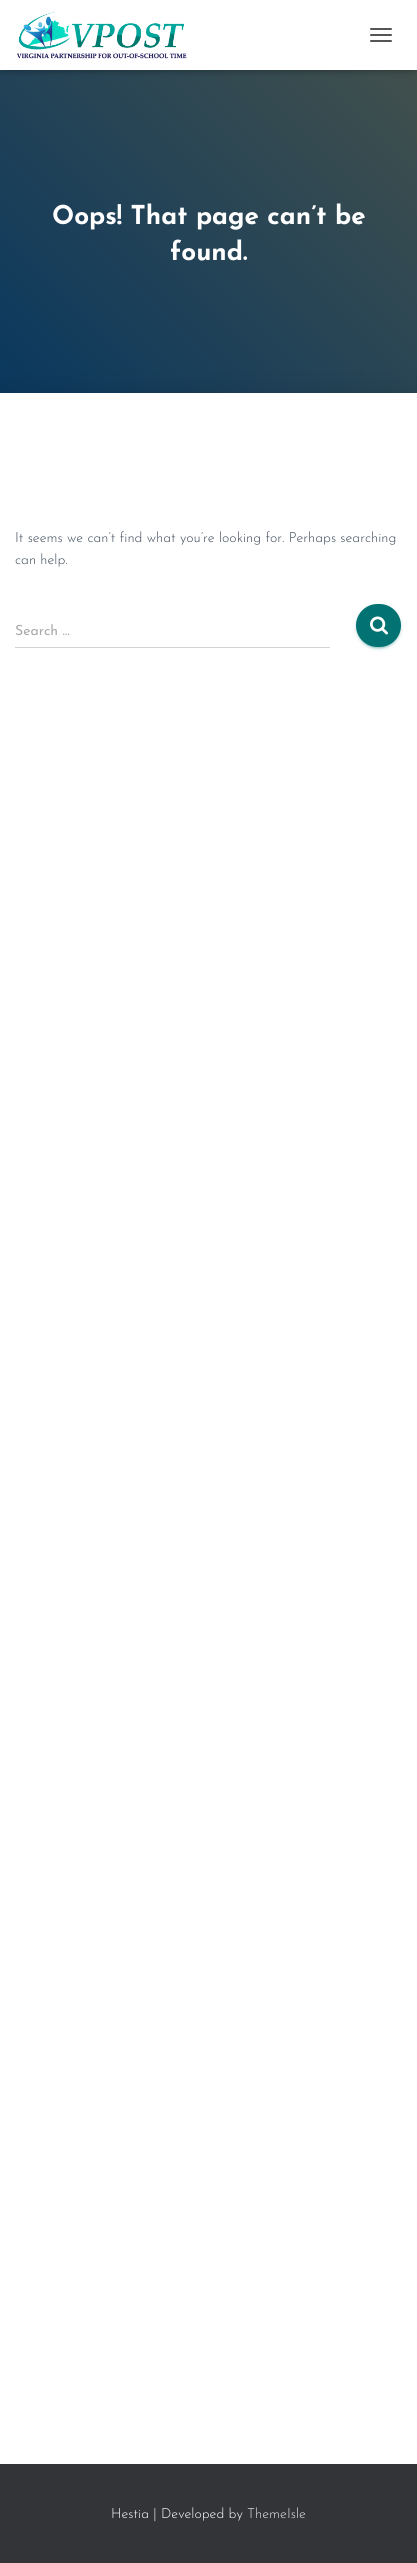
import math
import cairo

surface = cairo.ImageSurface(cairo.FORMAT_RGB24, 417, 2563)
cr = cairo.Context(surface)
options = cairo.FontOptions()
options.set_hint_metrics(cairo.HINT_METRICS_OFF)
options.set_hint_style(cairo.HINT_STYLE_NONE)
cr.set_font_options(options)
cr.set_miter_limit(4)


def rgb(code):
    cr.set_source_rgb(*(v / 255 for v in bytes.fromhex(code[-6:])))


def rrect(x, y, w, h, r):
    cr.new_sub_path()
    for i, (u, v) in enumerate([(x + w - r, y + h - r), (x + r, y + h - r), (x + r, y + r), (x + w - r, y + r)]):
        cr.arc(u, v, r, i * math.pi / 2, (i + 1) * math.pi / 2)
    cr.close_path()


def soft_shadow(x, y, w, h, r, blur, alpha):
    cr.push_group_with_content(cairo.CONTENT_ALPHA)
    cr.set_operator(cairo.OPERATOR_SOURCE)
    for i in range(15, -16, -2):
        e = blur * i / 6
        if min(w, h) + 2 * e > 0:
            cr.set_source_rgba(0, 0, 0, alpha * math.erfc((i - 1) / 8.5) / 2)
            rrect(x - e, y - e, w + 2 * e, h + 2 * e, max(0, min(r + e + blur * .6, min(w, h) / 2 + e)))
            cr.fill()
    cr.mask(cr.pop_group())


def image(path, x, y, w, h):
    cr.save()
    cr.set_source_surface(cairo.ImageSurface.create_from_png(path), x, y)
    cr.rectangle(x, y, w, h)
    cr.fill()
    cr.restore()


rgb("#ffffff")
cr.paint()
gradient = cairo.LinearGradient(-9, 444, 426, 9)
gradient.add_color_stop_rgba(0, 0.02, 0.212, 0.376, 1)
gradient.add_color_stop_rgba(1, 0.278, 0.322, 0.294, 1)
cr.set_source(gradient)
cr.rectangle(0, 70, 417, 323)
cr.fill()
rgb("#000000")
soft_shadow(2, 6, 413, 66, 0, 2.5, 0.1)
soft_shadow(0, 1, 417, 70, 0, 5, 0.12)
soft_shadow(6, 7, 405, 58, 0, 5, 0.42)
rgb("#ffffff")
cr.rectangle(0, 0, 417, 70)
cr.fill()
image("img/1.png", 16, 11, 171, 48)
rgb("#555555")
rrect(370, 28, 22, 2, 1)
cr.fill()
rrect(370, 34, 22, 2, 1)
cr.fill()
rrect(370, 40, 22, 2, 1)
cr.fill()
rgb("#000000")
soft_shadow(-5, 394, 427, 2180, 0, 15, 0.12)
rgb("#ffffff")
cr.rectangle(0, 393, 417, 2071)
cr.fill()
rgb("#d2d2d2")
cr.rectangle(15, 647, 315, 1)
cr.fill()
rgb("#037272")
soft_shadow(356, 605, 45, 43, 21.5, 2.5, 0.12)
soft_shadow(358, 609, 41, 39, 19.5, 0.5, 0.2)
soft_shadow(356, 606, 45, 43, 21.5, 1, 0.14)
rgb("#037272")
rrect(356, 604, 45, 43, 21.5)
cr.fill()
image("img/2.png", 370, 616, 18, 19)
rgb("#323437")
cr.rectangle(0, 2464, 417, 99)
cr.fill()
cr.select_font_face("Josefin Sans", cairo.FONT_SLANT_NORMAL, cairo.FONT_WEIGHT_BOLD)
cr.set_font_size(26)
rgb("#ffffff")
cr.move_to(52, 224)
cr.show_text("Oops! That page can’t be")
cr.move_to(170, 260)
cr.show_text("found.")
cr.select_font_face("Josefin Sans Light")
cr.set_font_size(14)
rgb("#3c4858")
cr.move_to(15, 542)
cr.show_text("It seems we can’t find what you’re looking for. Perhaps searching")
cr.move_to(15, 564)
cr.show_text("can help.")
cr.select_font_face("Josefin Sans")
rgb("#aaaaaa")
cr.move_to(15, 635)
cr.show_text("Search …")
cr.select_font_face("Josefin Sans Light")
rgb("#ffffff")
cr.move_to(111, 2518)
cr.show_text("Hestia | Developed by")
rgb("#e2e3e3")
cr.move_to(247, 2518)
cr.show_text("ThemeIsle")
surface.write_to_png("page.png")
